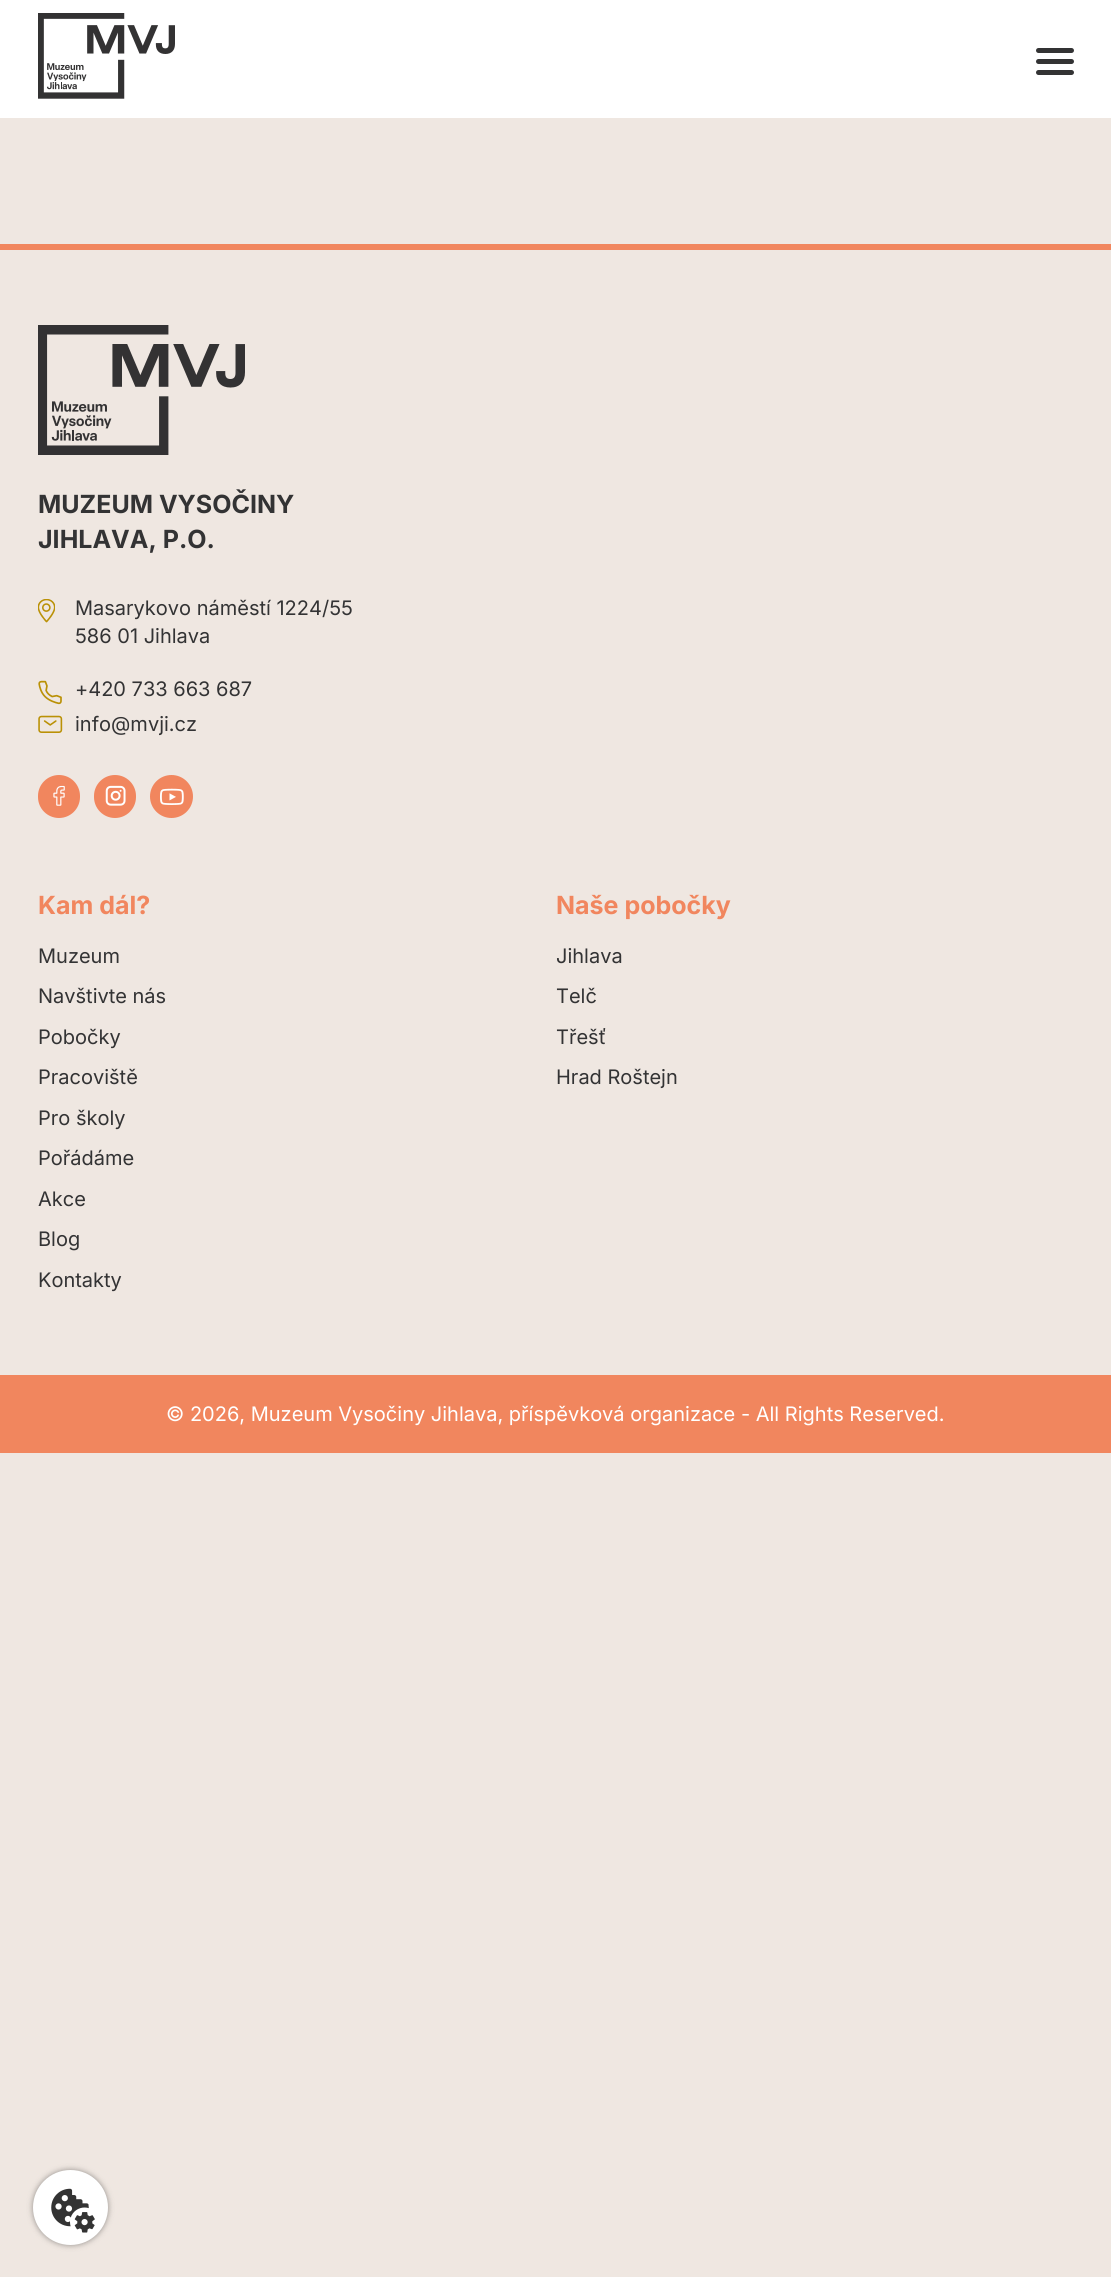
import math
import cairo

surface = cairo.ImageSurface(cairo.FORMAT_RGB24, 1111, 2277)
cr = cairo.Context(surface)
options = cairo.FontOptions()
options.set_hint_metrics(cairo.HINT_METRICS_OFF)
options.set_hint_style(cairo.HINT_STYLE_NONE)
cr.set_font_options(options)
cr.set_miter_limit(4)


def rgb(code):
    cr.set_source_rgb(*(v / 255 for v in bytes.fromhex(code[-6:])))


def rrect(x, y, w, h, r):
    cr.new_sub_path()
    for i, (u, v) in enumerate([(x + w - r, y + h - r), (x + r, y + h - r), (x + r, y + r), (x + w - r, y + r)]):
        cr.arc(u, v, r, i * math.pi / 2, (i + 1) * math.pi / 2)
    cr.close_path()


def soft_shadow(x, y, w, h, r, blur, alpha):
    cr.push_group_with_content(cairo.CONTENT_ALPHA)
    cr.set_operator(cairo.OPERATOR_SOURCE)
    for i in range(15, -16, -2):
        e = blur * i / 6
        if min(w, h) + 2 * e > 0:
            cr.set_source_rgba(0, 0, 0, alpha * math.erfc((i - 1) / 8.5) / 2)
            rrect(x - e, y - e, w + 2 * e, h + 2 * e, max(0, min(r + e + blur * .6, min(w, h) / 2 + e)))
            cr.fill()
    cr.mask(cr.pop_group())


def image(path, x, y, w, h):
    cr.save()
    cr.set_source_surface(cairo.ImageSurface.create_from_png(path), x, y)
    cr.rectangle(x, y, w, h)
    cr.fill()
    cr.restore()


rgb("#efe7e1")
cr.paint()
rgb("#ffffff")
cr.rectangle(0, 0, 1111, 118)
cr.fill()
image("img/1.png", 38, 13, 137, 86)
rgb("#333334")
rrect(1036, 48, 38, 5, 2.5)
cr.fill()
rrect(1036, 59, 38, 5, 2.5)
cr.fill()
rrect(1036, 70, 38, 5, 2.5)
cr.fill()
rgb("#f1865e")
cr.rectangle(0, 244, 1111, 6)
cr.fill()
image("img/2.png", 38, 325, 207, 130)
image("img/3.png", 38, 599, 17, 24)
image("img/4.png", 38, 680, 24, 25)
image("img/5.png", 38, 715, 25, 18)
image("img/6.png", 38, 775, 42, 43)
image("img/7.png", 94, 775, 42, 43)
image("img/8.png", 150, 775, 43, 43)
cr.rectangle(0, 1375, 1111, 78)
cr.fill()
rgb("#000000")
soft_shadow(33, 2170, 75, 75, 37.5, 3, 0.4)
rgb("#ffffff")
cr.arc(70.5, 2207.5, 37.5, 0, 2 * math.pi)
cr.fill()
image("img/9.png", 51, 2188, 44, 45)
cr.select_font_face("Inter", cairo.FONT_SLANT_NORMAL, cairo.FONT_WEIGHT_BOLD)
cr.set_font_size(25)
rgb("#333334")
cr.move_to(38, 513)
cr.show_text("MUZEUM VYSOČINY")
cr.move_to(38, 548)
cr.show_text("JIHLAVA, P.O.")
cr.select_font_face("Inter")
cr.set_font_size(20)
for x, y, s in [
    (75, 615, "Masarykovo náměstí 1224/55"),
    (75, 643, "586 01 Jihlava"),
    (75, 696, "+420 733 663 687"),
    (75, 731, "info@mvji.cz"),
]:
    cr.move_to(x, y)
    cr.show_text(s)
cr.select_font_face("Inter", cairo.FONT_SLANT_NORMAL, cairo.FONT_WEIGHT_BOLD)
cr.set_font_size(25)
rgb("#f1865e")
cr.move_to(38, 914)
cr.show_text("Kam dál?")
cr.select_font_face("Inter")
cr.set_font_size(20)
rgb("#333334")
for x, y, s in [
    (38, 963, "Muzeum"),
    (38, 1003, "Navštivte nás"),
    (38, 1044, "Pobočky"),
    (38, 1084, "Pracoviště"),
    (38, 1125, "Pro školy"),
    (38, 1165, "Pořádáme"),
    (38, 1206, "Akce"),
    (38, 1246, "Blog"),
    (38, 1287, "Kontakty"),
]:
    cr.move_to(x, y)
    cr.show_text(s)
cr.select_font_face("Inter", cairo.FONT_SLANT_NORMAL, cairo.FONT_WEIGHT_BOLD)
cr.set_font_size(25)
rgb("#f1865e")
cr.move_to(556, 914)
cr.show_text("Naše pobočky")
cr.select_font_face("Inter")
cr.set_font_size(20)
rgb("#333334")
for x, y, s in [
    (556, 963, "Jihlava"),
    (556, 1003, "Telč"),
    (556, 1044, "Třešť"),
    (556, 1084, "Hrad Roštejn"),
]:
    cr.move_to(x, y)
    cr.show_text(s)
rgb("#ffffff")
cr.move_to(166, 1421)
cr.show_text("© 2026, Muzeum Vysočiny Jihlava, příspěvková organizace - All Rights Reserved.")
surface.write_to_png("page.png")
